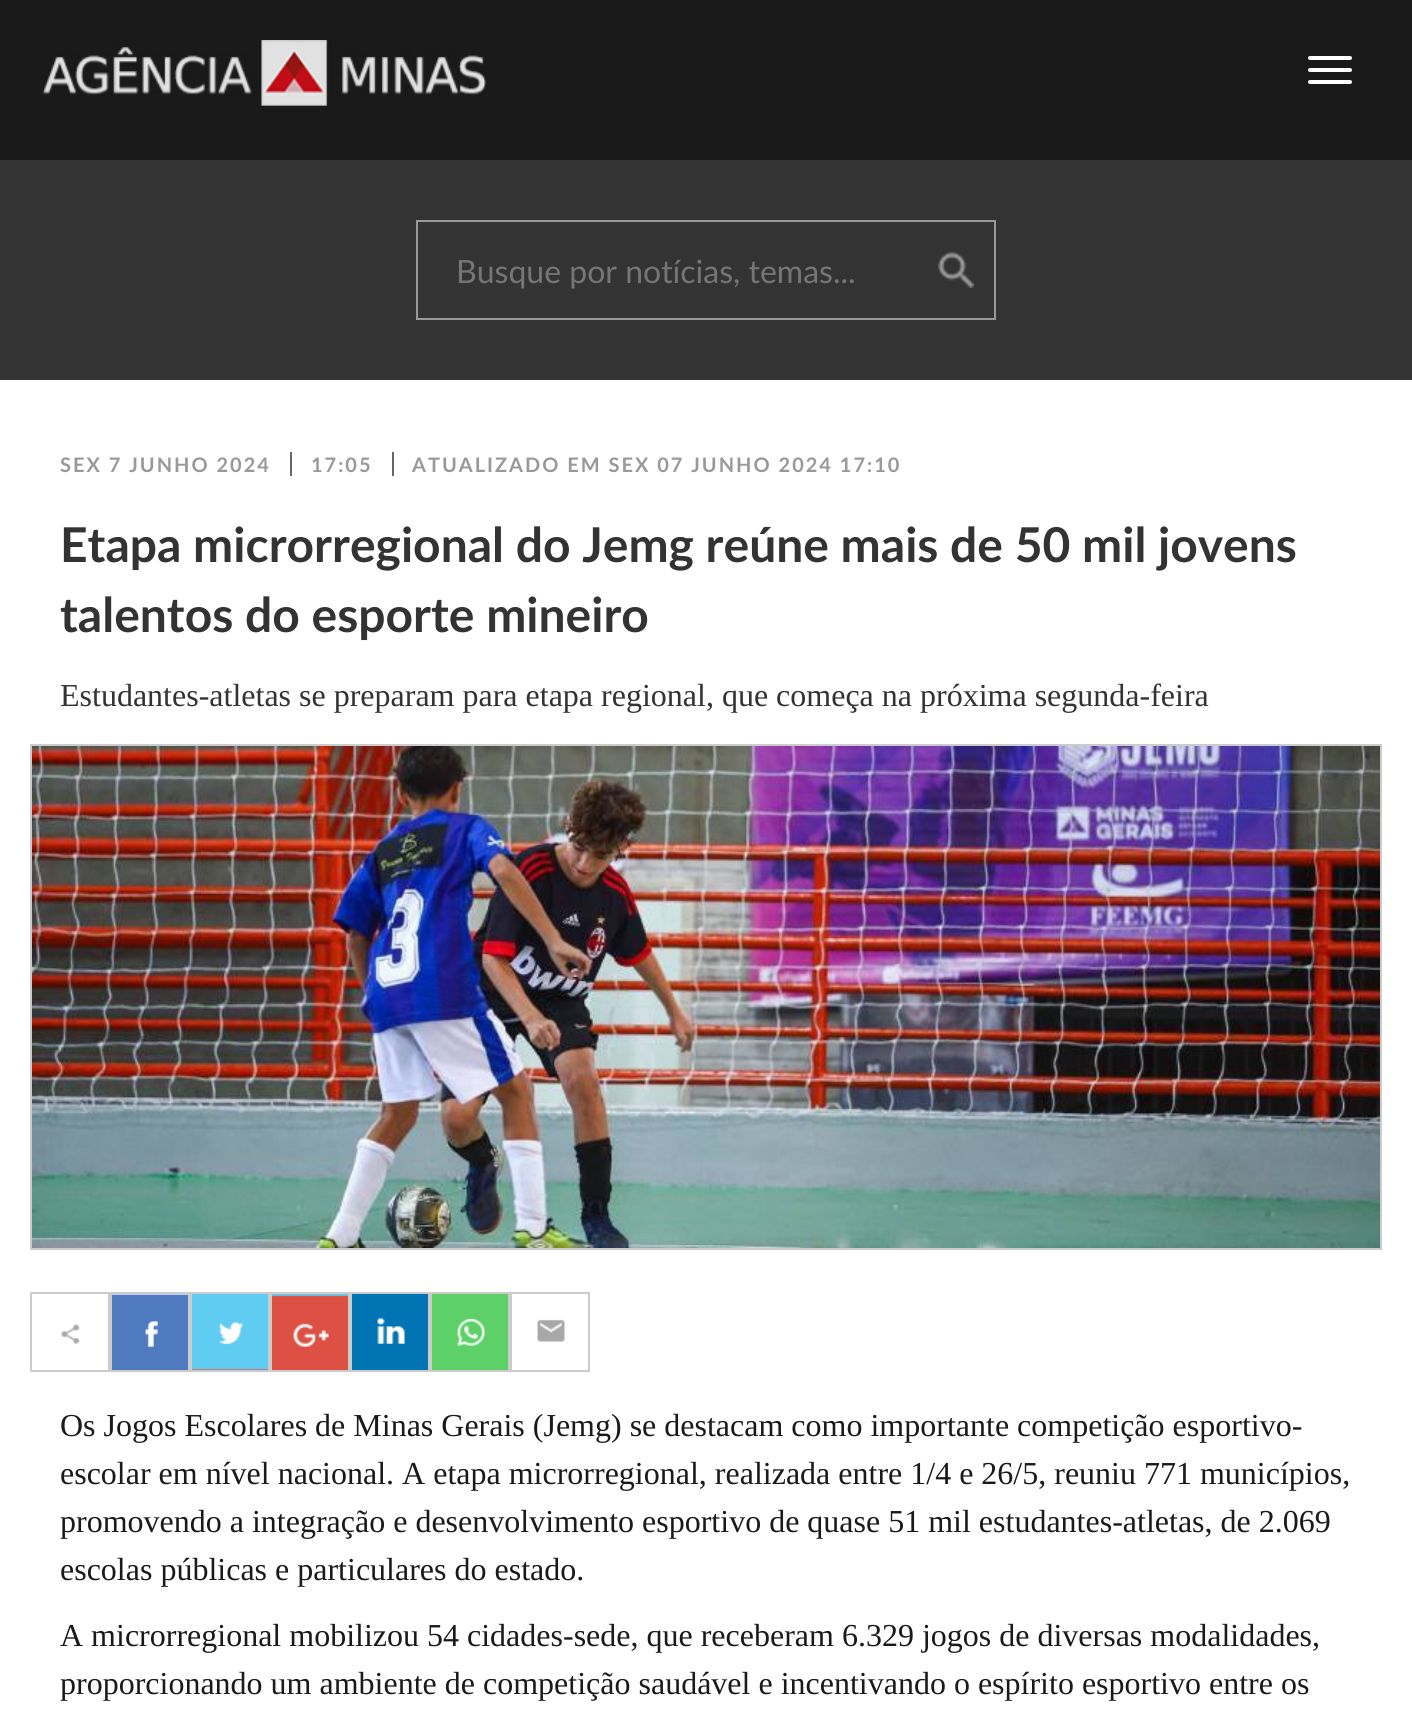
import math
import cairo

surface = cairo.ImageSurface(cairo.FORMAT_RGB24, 1412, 1720)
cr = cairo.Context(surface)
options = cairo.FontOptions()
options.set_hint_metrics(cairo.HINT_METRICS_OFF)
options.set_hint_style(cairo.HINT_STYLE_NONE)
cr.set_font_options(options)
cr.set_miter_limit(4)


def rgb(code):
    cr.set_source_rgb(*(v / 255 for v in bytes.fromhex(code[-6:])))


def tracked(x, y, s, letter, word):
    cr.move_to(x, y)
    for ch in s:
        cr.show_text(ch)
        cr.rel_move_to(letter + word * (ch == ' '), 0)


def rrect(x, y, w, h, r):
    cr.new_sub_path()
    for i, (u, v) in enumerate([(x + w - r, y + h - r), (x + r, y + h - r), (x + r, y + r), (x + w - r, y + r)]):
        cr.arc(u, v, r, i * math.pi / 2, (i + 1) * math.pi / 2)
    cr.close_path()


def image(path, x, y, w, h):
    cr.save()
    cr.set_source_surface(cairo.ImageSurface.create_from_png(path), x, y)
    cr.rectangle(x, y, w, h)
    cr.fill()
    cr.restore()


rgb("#ffffff")
cr.paint()
rgb("#1a1a1a")
cr.rectangle(0, 0, 1412, 160)
cr.fill()
image("img/1.png", 42, 40, 444, 66)
rgb("#ffffff")
rrect(1308, 56, 44, 4, 2)
cr.fill()
rrect(1308, 68, 44, 4, 2)
cr.fill()
rrect(1308, 80, 44, 4, 2)
cr.fill()
rgb("#333333")
cr.rectangle(0, 160, 1412, 220)
cr.fill()
cr.rectangle(417, 221, 578, 98)
rgb("#999999")
cr.stroke()
image("img/2.png", 938, 252, 36, 36)
rgb("#666666")
cr.rectangle(290, 452, 2, 24)
cr.fill()
cr.rectangle(392, 452, 2, 24)
cr.fill()
cr.rectangle(31, 745, 1350, 504)
rgb("#cccccc")
cr.stroke()
image("img/3.png", 32, 746, 1348, 502)
image("img/4.png", 32, 1324, 76, 46)
cr.rectangle(31, 1293, 78, 78)
cr.stroke()
image("img/5.png", 112, 1294, 76, 76)
cr.rectangle(111, 1293, 78, 78)
cr.stroke()
image("img/6.png", 192, 1294, 76, 76)
cr.rectangle(191, 1293, 78, 78)
cr.stroke()
image("img/7.png", 272, 1294, 76, 76)
cr.rectangle(271, 1293, 78, 78)
cr.stroke()
image("img/8.png", 352, 1294, 76, 76)
cr.rectangle(351, 1293, 78, 78)
cr.stroke()
image("img/9.png", 432, 1294, 76, 76)
cr.rectangle(431, 1293, 78, 78)
cr.stroke()
image("img/10.png", 537, 1319, 28, 23)
cr.rectangle(511, 1293, 78, 78)
cr.stroke()
cr.select_font_face("Lato")
cr.set_font_size(32)
rgb("#757575")
cr.move_to(456, 283)
cr.show_text("Busque por notícias, temas...")
cr.select_font_face("Lato", cairo.FONT_SLANT_NORMAL, cairo.FONT_WEIGHT_BOLD)
cr.set_font_size(20)
rgb("#999999")
for x, y, s in [
    (60, 472, "SEX 7 JUNHO 2024"),
    (311, 472, "17:05"),
    (412, 472, "ATUALIZADO EM SEX 07 JUNHO 2024 17:10"),
]:
    tracked(x, y, s, 2, 0)
cr.set_font_size(48)
rgb("#333333")
cr.move_to(60, 562)
cr.show_text("Etapa microrregional do Jemg reúne mais de 50 mil jovens")
cr.move_to(60, 632)
cr.show_text("talentos do esporte mineiro")
cr.select_font_face("Liberation Serif")
cr.set_font_size(32)
cr.move_to(60, 706)
cr.show_text("Estudantes-atletas se preparam para etapa regional, que começa na próxima segunda-feira")
rgb("#1a1a1a")
for x, y, s in [
    (60, 1436, "Os Jogos Escolares de Minas Gerais (Jemg) se destacam como importante competição esportivo-"),
    (60, 1484, "escolar em nível nacional. A etapa microrregional, realizada entre 1/4 e 26/5, reuniu 771 municípios,"),
    (60, 1532, "promovendo a integração e desenvolvimento esportivo de quase 51 mil estudantes-atletas, de 2.069"),
    (60, 1580, "escolas públicas e particulares do estado."),
    (60, 1646, "A microrregional mobilizou 54 cidades-sede, que receberam 6.329 jogos de diversas modalidades,"),
    (60, 1694, "proporcionando um ambiente de competição saudável e incentivando o espírito esportivo entre os"),
]:
    cr.move_to(x, y)
    cr.show_text(s)
surface.write_to_png("page.png")
